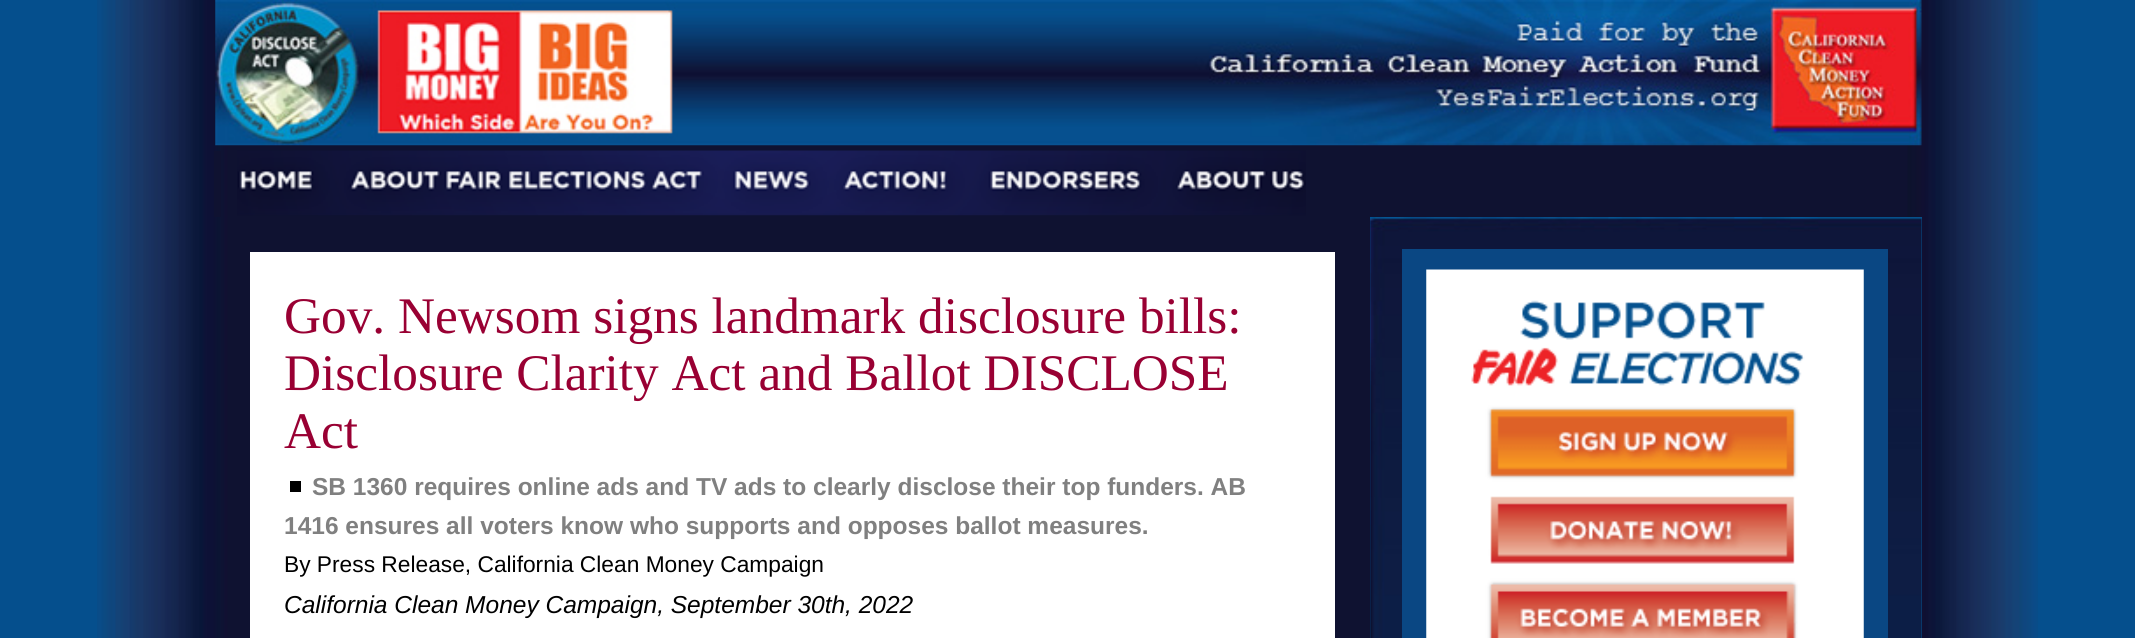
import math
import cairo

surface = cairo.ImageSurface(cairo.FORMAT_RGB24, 2135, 638)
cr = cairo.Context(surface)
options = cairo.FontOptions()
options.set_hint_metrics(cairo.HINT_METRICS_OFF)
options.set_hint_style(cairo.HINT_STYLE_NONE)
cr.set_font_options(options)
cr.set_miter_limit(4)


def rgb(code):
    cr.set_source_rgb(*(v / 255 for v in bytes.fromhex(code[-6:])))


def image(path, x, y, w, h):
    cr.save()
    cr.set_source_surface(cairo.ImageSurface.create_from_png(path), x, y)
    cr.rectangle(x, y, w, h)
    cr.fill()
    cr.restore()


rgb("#054f8d")
cr.paint()
image("img/1.png", 97, 0, 1941, 638)
image("img/2.png", 215, 0, 1707, 146)
rgb("#0f1231")
cr.rectangle(214, 151, 7, 66)
cr.fill()
image("img/3.png", 237, 150, 1069, 66)
for x, y, w, h, color in [
    (250, 252, 1085, 386, "#ffffff"),
    (290, 481, 11, 11, "#000000"),
    (1370, 217, 552, 421, "#06508d"),
]:
    rgb(color)
    cr.rectangle(x, y, w, h)
    cr.fill()
image("img/4.png", 1370, 217, 552, 421)
rgb("#0a4783")
cr.rectangle(1402, 249, 486, 389)
cr.fill()
image("img/5.png", 1426, 269, 438, 369)
cr.select_font_face("Liberation Serif")
cr.set_font_size(51.3)
rgb("#990033")
for x, y, s in [
    (284, 333, "Gov. Newsom signs landmark disclosure bills:"),
    (284, 390, "Disclosure Clarity Act and Ballot DISCLOSE"),
    (284, 448, "Act"),
]:
    cr.move_to(x, y)
    cr.show_text(s)
cr.select_font_face("Liberation Sans", cairo.FONT_SLANT_NORMAL, cairo.FONT_WEIGHT_BOLD)
cr.set_font_size(24.5)
rgb("#808080")
cr.move_to(312, 495)
cr.show_text("SB 1360 requires online ads and TV ads to clearly disclose their top funders. AB")
cr.move_to(284, 534)
cr.show_text("1416 ensures all voters know who supports and opposes ballot measures.")
cr.select_font_face("Liberation Sans")
cr.set_font_size(22.75)
rgb("#000000")
cr.move_to(284, 572)
cr.show_text("By Press Release, California Clean Money Campaign")
cr.select_font_face("Liberation Sans", cairo.FONT_SLANT_ITALIC)
cr.set_font_size(24.5)
cr.move_to(284, 613)
cr.show_text("California Clean Money Campaign, September 30th, 2022")
surface.write_to_png("page.png")
